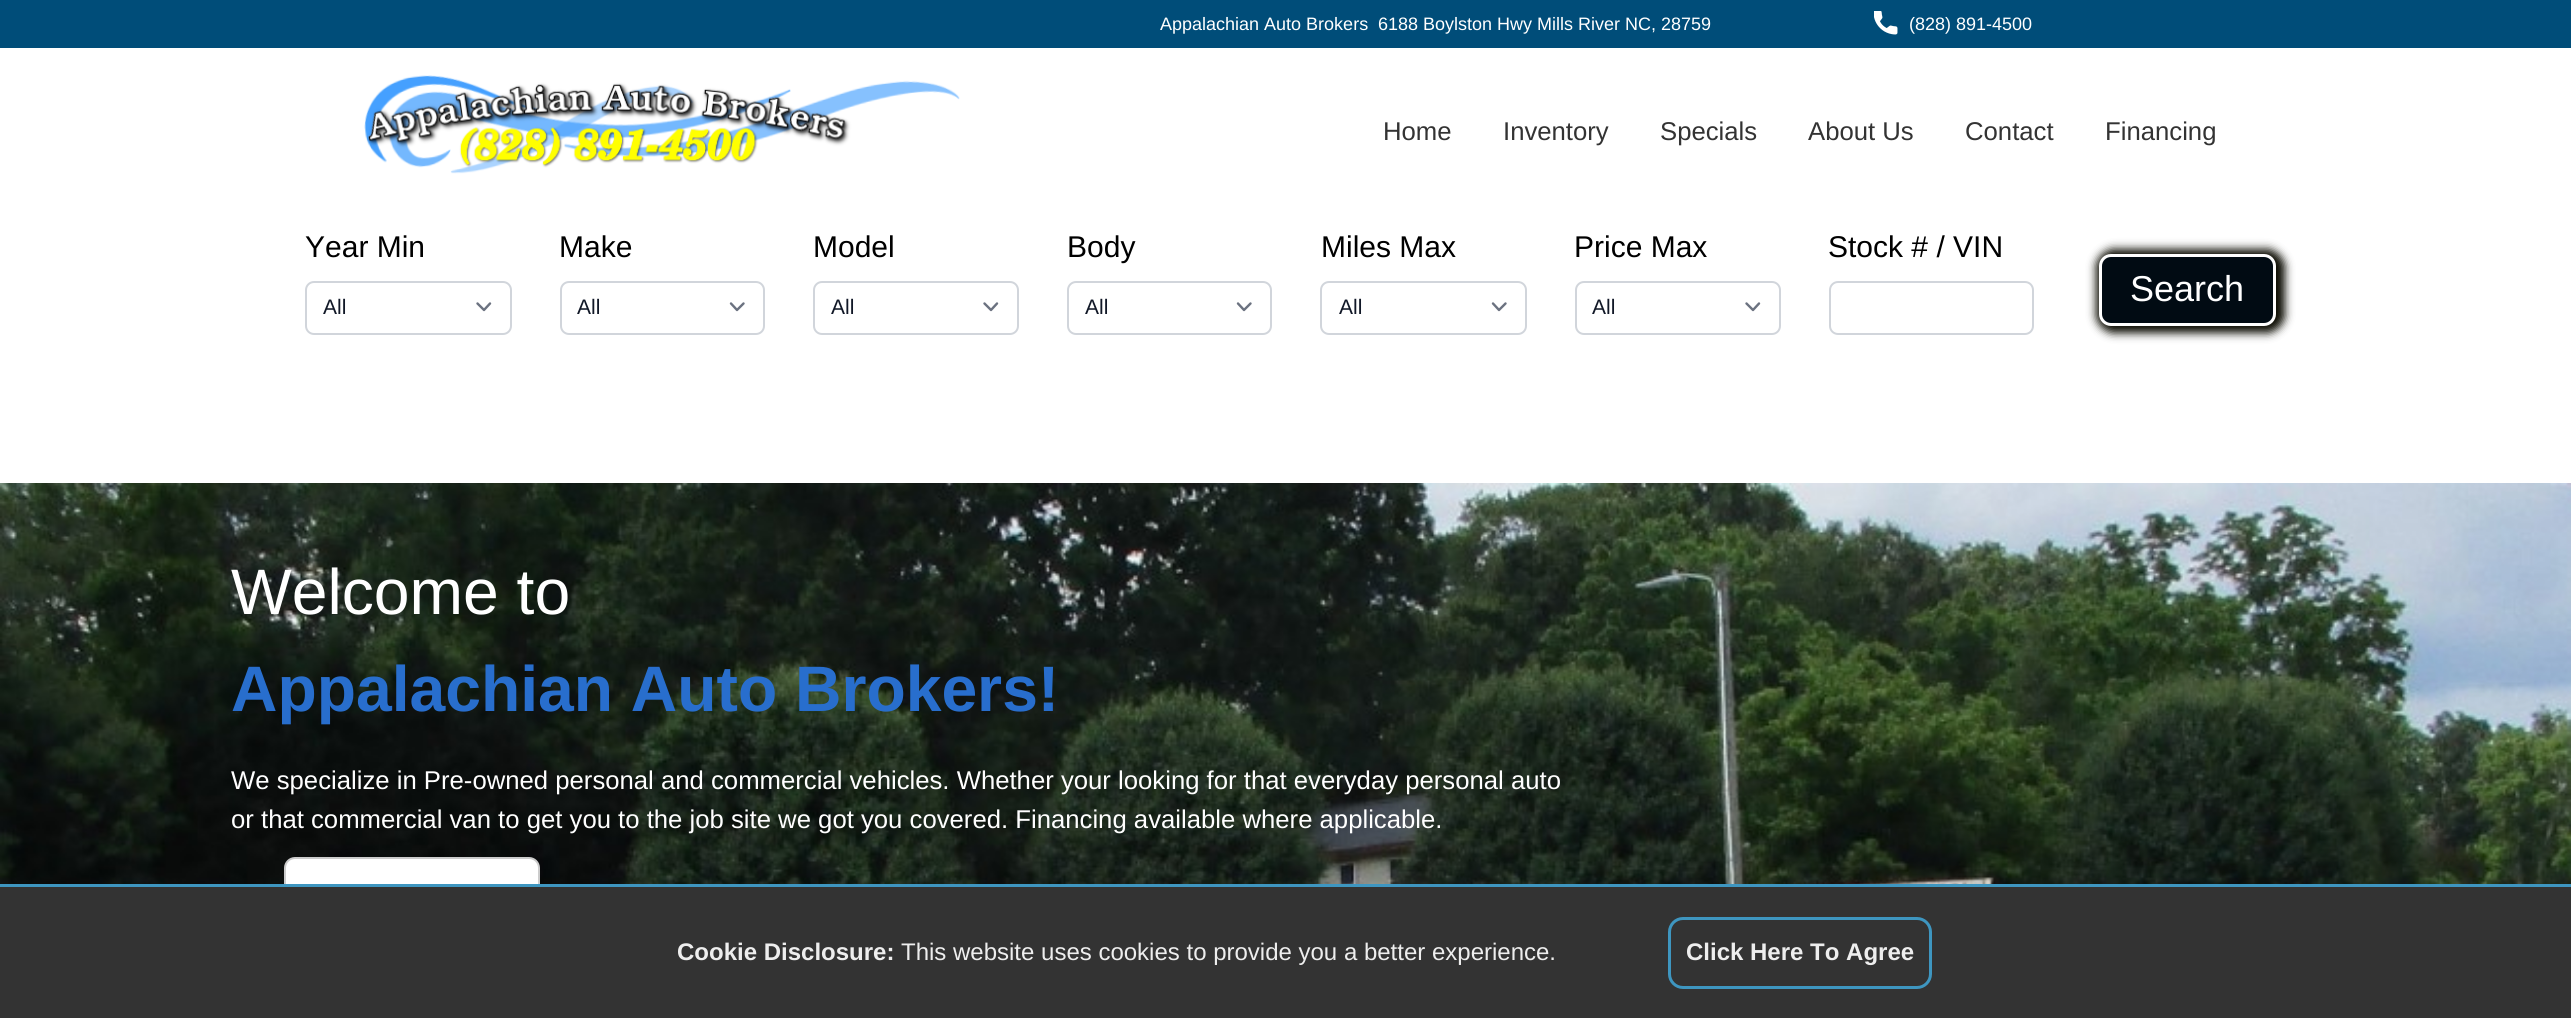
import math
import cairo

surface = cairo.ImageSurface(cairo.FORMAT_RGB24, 2571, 1018)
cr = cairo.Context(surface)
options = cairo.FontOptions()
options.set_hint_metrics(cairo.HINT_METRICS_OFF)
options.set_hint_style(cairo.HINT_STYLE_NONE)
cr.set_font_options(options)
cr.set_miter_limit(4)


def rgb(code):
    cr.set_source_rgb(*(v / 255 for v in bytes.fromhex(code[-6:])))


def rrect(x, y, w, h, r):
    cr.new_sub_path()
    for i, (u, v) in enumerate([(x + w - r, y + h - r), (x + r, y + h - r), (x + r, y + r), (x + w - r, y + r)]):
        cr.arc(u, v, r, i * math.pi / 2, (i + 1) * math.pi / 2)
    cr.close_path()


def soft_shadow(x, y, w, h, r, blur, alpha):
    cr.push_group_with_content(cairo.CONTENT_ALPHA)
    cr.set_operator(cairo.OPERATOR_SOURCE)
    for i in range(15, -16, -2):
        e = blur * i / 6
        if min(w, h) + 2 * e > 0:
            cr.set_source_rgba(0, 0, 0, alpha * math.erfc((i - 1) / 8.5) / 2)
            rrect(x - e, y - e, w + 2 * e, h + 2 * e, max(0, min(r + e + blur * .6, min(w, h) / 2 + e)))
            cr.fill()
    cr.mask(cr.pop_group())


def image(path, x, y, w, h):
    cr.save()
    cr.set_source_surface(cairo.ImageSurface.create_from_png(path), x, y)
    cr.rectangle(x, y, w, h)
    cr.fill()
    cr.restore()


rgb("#ffffff")
cr.paint()
rgb("#004d79")
cr.rectangle(0, 0, 2571, 48)
cr.fill()
image("img/1.png", 1874, 11, 24, 24)
image("img/2.png", 364, 75, 596, 99)
cr.new_path()
cr.move_to(477.5, 303.5)
cr.line_to(484, 310)
cr.line_to(490, 303.5)
rgb("#6b7280")
cr.set_line_width(2.4)
cr.set_line_cap(cairo.LINE_CAP_ROUND)
cr.set_line_join(cairo.LINE_JOIN_ROUND)
cr.stroke()
rrect(306, 282, 205, 52, 8)
rgb("#d1d5db")
cr.set_line_width(2)
cr.set_line_cap(cairo.LINE_CAP_BUTT)
cr.set_line_join(cairo.LINE_JOIN_MITER)
cr.stroke()
cr.new_path()
cr.move_to(731, 303.5)
cr.line_to(737, 310)
cr.line_to(743.5, 303.5)
rgb("#6b7280")
cr.set_line_width(2.4)
cr.set_line_cap(cairo.LINE_CAP_ROUND)
cr.set_line_join(cairo.LINE_JOIN_ROUND)
cr.stroke()
rrect(561, 282, 203, 52, 8)
rgb("#d1d5db")
cr.set_line_width(2)
cr.set_line_cap(cairo.LINE_CAP_BUTT)
cr.set_line_join(cairo.LINE_JOIN_MITER)
cr.stroke()
cr.new_path()
cr.move_to(984.5, 303.5)
cr.line_to(991, 310)
cr.line_to(997, 303.5)
rgb("#6b7280")
cr.set_line_width(2.4)
cr.set_line_cap(cairo.LINE_CAP_ROUND)
cr.set_line_join(cairo.LINE_JOIN_ROUND)
cr.stroke()
rrect(814, 282, 204, 52, 8)
rgb("#d1d5db")
cr.set_line_width(2)
cr.set_line_cap(cairo.LINE_CAP_BUTT)
cr.set_line_join(cairo.LINE_JOIN_MITER)
cr.stroke()
cr.new_path()
cr.move_to(1238, 303.5)
cr.line_to(1244, 310)
cr.line_to(1250.5, 303.5)
rgb("#6b7280")
cr.set_line_width(2.4)
cr.set_line_cap(cairo.LINE_CAP_ROUND)
cr.set_line_join(cairo.LINE_JOIN_ROUND)
cr.stroke()
rrect(1068, 282, 203, 52, 8)
rgb("#d1d5db")
cr.set_line_width(2)
cr.set_line_cap(cairo.LINE_CAP_BUTT)
cr.set_line_join(cairo.LINE_JOIN_MITER)
cr.stroke()
cr.new_path()
cr.move_to(1493, 303.5)
cr.line_to(1499, 310)
cr.line_to(1505.5, 303.5)
rgb("#6b7280")
cr.set_line_width(2.4)
cr.set_line_cap(cairo.LINE_CAP_ROUND)
cr.set_line_join(cairo.LINE_JOIN_ROUND)
cr.stroke()
rrect(1321, 282, 205, 52, 8)
rgb("#d1d5db")
cr.set_line_width(2)
cr.set_line_cap(cairo.LINE_CAP_BUTT)
cr.set_line_join(cairo.LINE_JOIN_MITER)
cr.stroke()
cr.new_path()
cr.move_to(1746.5, 303.5)
cr.line_to(1753, 310)
cr.line_to(1759, 303.5)
rgb("#6b7280")
cr.set_line_width(2.4)
cr.set_line_cap(cairo.LINE_CAP_ROUND)
cr.set_line_join(cairo.LINE_JOIN_ROUND)
cr.stroke()
rrect(1576, 282, 204, 52, 8)
rgb("#d1d5db")
cr.set_line_width(2)
cr.set_line_cap(cairo.LINE_CAP_BUTT)
cr.set_line_join(cairo.LINE_JOIN_MITER)
cr.stroke()
rrect(1830, 282, 203, 52, 8)
cr.stroke()
rgb("#0a0a00")
soft_shadow(2096, 249, 189, 84, 18, 4.5, 1)
rgb("#010b13")
rrect(2100.5, 255.5, 174, 69, 10.5)
cr.fill_preserve()
rgb("#ffffff")
cr.set_line_width(3)
cr.stroke()
image("img/3.png", 0, 483, 2571, 401)
rrect(285, 858, 254, 50, 10)
cr.fill_preserve()
rgb("#cccccc")
cr.set_line_width(2)
cr.stroke()
rgb("#3e96c0")
cr.rectangle(0, 884, 2571, 3)
cr.fill()
rgb("#333333")
cr.rectangle(0, 887, 2571, 131)
cr.fill()
rrect(1669.5, 918.5, 261, 69, 13.5)
rgb("#3e96c0")
cr.set_line_width(3)
cr.stroke()
cr.select_font_face("Liberation Sans")
cr.set_font_size(18)
rgb("#ffffff")
for x, y, s in [
    (1160, 30, "Appalachian Auto Brokers"),
    (1378, 30, "6188 Boylston Hwy Mills River NC, 28759"),
    (1909, 30, "(828) 891-4500"),
]:
    cr.move_to(x, y)
    cr.show_text(s)
cr.set_font_size(25.7)
rgb("#333333")
for x, y, s in [
    (1383, 140, "Home"),
    (1503, 140, "Inventory"),
    (1660, 140, "Specials"),
    (1808, 140, "About Us"),
    (1965, 140, "Contact"),
    (2105, 140, "Financing"),
]:
    cr.move_to(x, y)
    cr.show_text(s)
cr.set_font_size(30)
rgb("#000000")
cr.move_to(305, 257)
cr.show_text("Year Min")
cr.set_font_size(21)
rgb("#111827")
cr.move_to(323, 314)
cr.show_text("All")
cr.set_font_size(30)
rgb("#000000")
cr.move_to(559, 257)
cr.show_text("Make")
cr.set_font_size(21)
rgb("#111827")
cr.move_to(577, 314)
cr.show_text("All")
cr.set_font_size(30)
rgb("#000000")
cr.move_to(813, 257)
cr.show_text("Model")
cr.set_font_size(21)
rgb("#111827")
cr.move_to(831, 314)
cr.show_text("All")
cr.set_font_size(30)
rgb("#000000")
cr.move_to(1067, 257)
cr.show_text("Body")
cr.set_font_size(21)
rgb("#111827")
cr.move_to(1085, 314)
cr.show_text("All")
cr.set_font_size(30)
rgb("#000000")
cr.move_to(1321, 257)
cr.show_text("Miles Max")
cr.set_font_size(21)
rgb("#111827")
cr.move_to(1339, 314)
cr.show_text("All")
cr.set_font_size(30)
rgb("#000000")
cr.move_to(1574, 257)
cr.show_text("Price Max")
cr.set_font_size(21)
rgb("#111827")
cr.move_to(1592, 314)
cr.show_text("All")
cr.set_font_size(30)
rgb("#000000")
cr.move_to(1828, 257)
cr.show_text("Stock # / VIN")
cr.set_font_size(36)
rgb("#ffffff")
cr.move_to(2130, 301)
cr.show_text("Search")
cr.set_font_size(64.25)
cr.move_to(231, 614)
cr.show_text("Welcome to")
cr.select_font_face("Liberation Sans", cairo.FONT_SLANT_NORMAL, cairo.FONT_WEIGHT_BOLD)
rgb("#286ecd")
cr.move_to(231, 711)
cr.show_text("Appalachian Auto Brokers!")
cr.select_font_face("Liberation Sans")
cr.set_font_size(25.7)
rgb("#ffffff")
cr.move_to(231, 789)
cr.show_text("We specialize in Pre-owned personal and commercial vehicles. Whether your looking for that everyday personal auto")
cr.move_to(231, 828)
cr.show_text("or that commercial van to get you to the job site we got you covered. Financing available where applicable.")
cr.select_font_face("Liberation Sans", cairo.FONT_SLANT_NORMAL, cairo.FONT_WEIGHT_BOLD)
cr.set_font_size(24)
rgb("#eeeeee")
cr.move_to(677, 960)
cr.show_text("Cookie Disclosure:")
cr.select_font_face("Liberation Sans")
cr.move_to(901, 960)
cr.show_text("This website uses cookies to provide you a better experience.")
cr.select_font_face("Liberation Sans", cairo.FONT_SLANT_NORMAL, cairo.FONT_WEIGHT_BOLD)
cr.move_to(1686, 960)
cr.show_text("Click Here To Agree")
surface.write_to_png("page.png")
